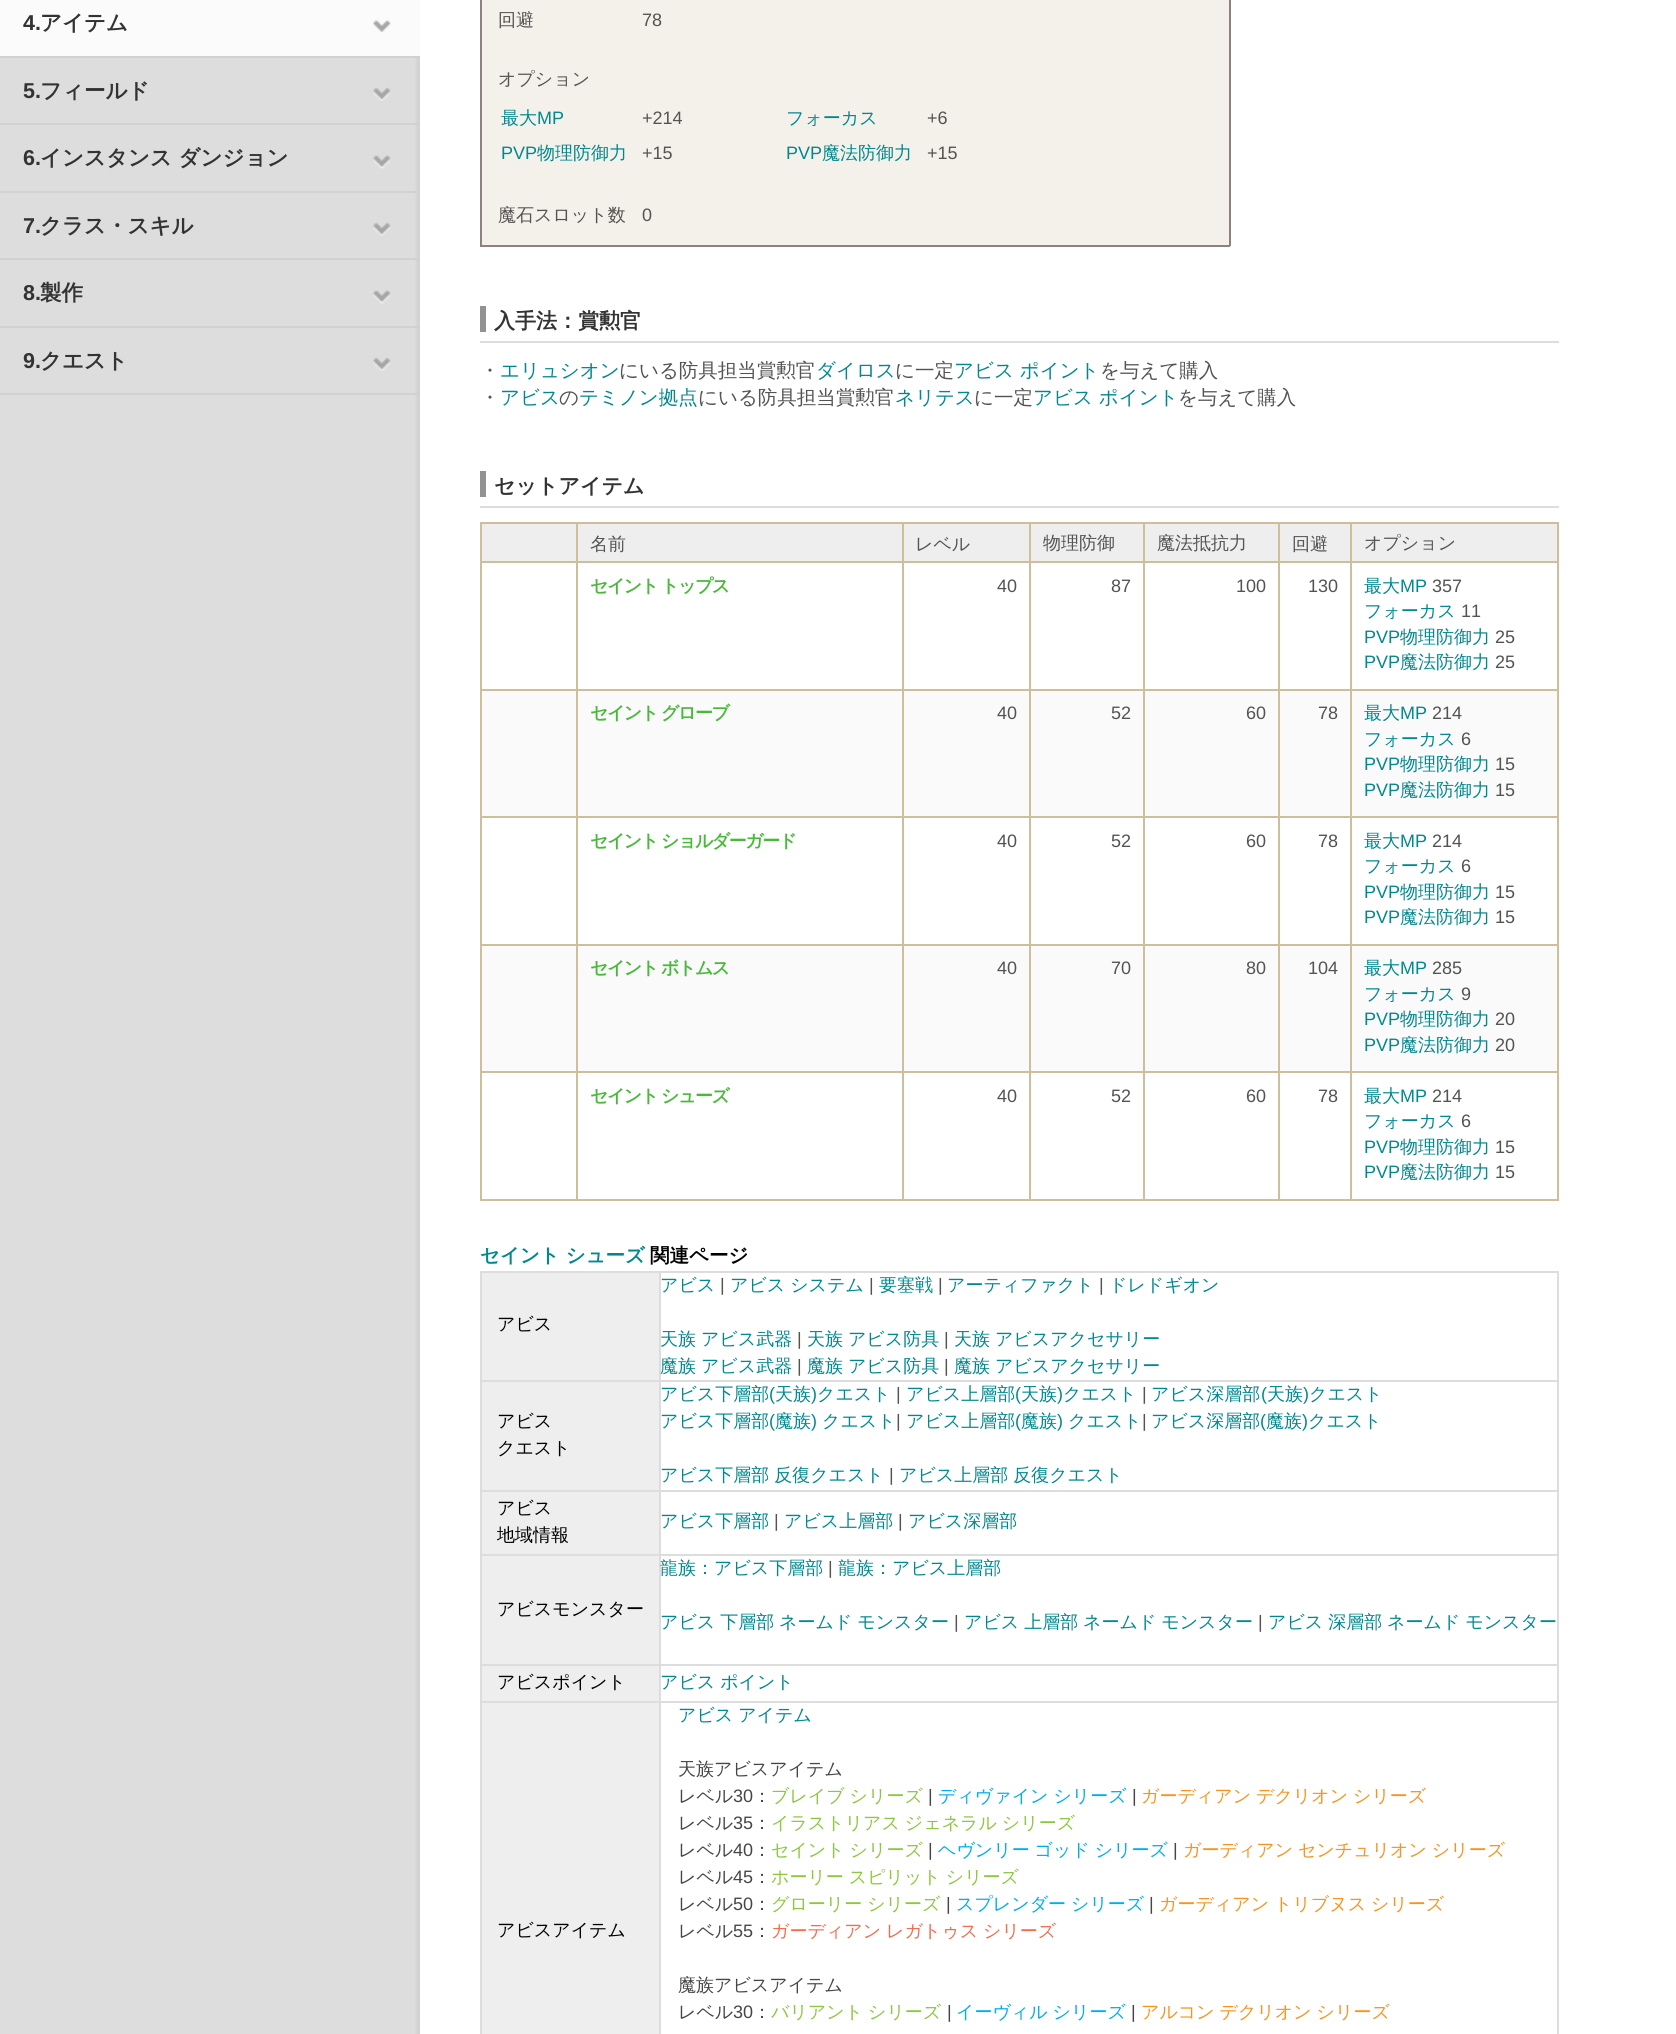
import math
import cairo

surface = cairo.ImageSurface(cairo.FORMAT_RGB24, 1676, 2034)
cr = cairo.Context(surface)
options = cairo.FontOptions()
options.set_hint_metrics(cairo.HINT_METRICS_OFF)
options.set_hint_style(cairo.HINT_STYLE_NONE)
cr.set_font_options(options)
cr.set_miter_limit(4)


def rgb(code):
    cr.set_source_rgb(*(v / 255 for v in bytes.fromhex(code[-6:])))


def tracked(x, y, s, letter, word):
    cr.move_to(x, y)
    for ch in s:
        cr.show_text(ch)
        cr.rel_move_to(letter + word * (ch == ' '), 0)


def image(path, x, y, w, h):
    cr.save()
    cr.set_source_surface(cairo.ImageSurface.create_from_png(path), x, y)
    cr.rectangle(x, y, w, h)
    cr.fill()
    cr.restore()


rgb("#ffffff")
cr.paint()
image("img/1.png", 0, 58, 420, 1976)
rgb("#fbfbfb")
cr.rectangle(0, 0, 420, 56)
cr.fill()
rgb("#d1d1d1")
cr.rectangle(0, 56, 420, 2)
cr.fill()
image("img/2.png", 373, 19, 18, 14)
cr.rectangle(0, 123, 420, 2)
cr.fill()
image("img/3.png", 373, 87, 18, 14)
cr.rectangle(0, 191, 420, 2)
cr.fill()
image("img/4.png", 373, 155, 18, 14)
cr.rectangle(0, 258, 420, 2)
cr.fill()
image("img/3.png", 373, 222, 18, 14)
cr.rectangle(0, 326, 420, 2)
cr.fill()
image("img/4.png", 373, 290, 18, 14)
cr.rectangle(0, 393, 420, 2)
cr.fill()
image("img/3.png", 373, 357, 18, 14)
for x, y, w, h, color in [
    (482, 0, 747, 245, "#f4f1eb"),
    (1229, 0, 2, 246, "#908080"),
    (480, 245, 750, 2, "#908080"),
    (480, 0, 2, 246, "#908080"),
    (480, 341, 1079, 2, "#dddddd"),
    (480, 306, 6, 26, "#929292"),
    (480, 506, 1079, 2, "#dddddd"),
    (480, 471, 6, 26, "#929292"),
    (480, 522, 1079, 2, "#cebe9c"),
    (1557, 522, 2, 678, "#cebe9c"),
    (480, 1199, 1079, 2, "#cebe9c"),
    (480, 522, 2, 678, "#cebe9c"),
    (482, 524, 1075, 37, "#eeeeee"),
    (1350, 561, 209, 2, "#cebe9c"),
    (1350, 689, 209, 2, "#cebe9c"),
    (482, 691, 1075, 125, "#fafafa"),
    (1350, 816, 209, 2, "#cebe9c"),
    (1350, 944, 209, 2, "#cebe9c"),
    (482, 946, 1075, 125, "#fafafa"),
    (1350, 1071, 209, 2, "#cebe9c"),
    (1350, 1071, 2, 129, "#cebe9c"),
    (1278, 1071, 74, 2, "#cebe9c"),
    (1350, 944, 2, 129, "#cebe9c"),
    (1278, 944, 74, 2, "#cebe9c"),
    (1350, 816, 2, 129, "#cebe9c"),
    (1278, 816, 74, 2, "#cebe9c"),
    (1350, 689, 2, 129, "#cebe9c"),
    (1278, 689, 74, 2, "#cebe9c"),
    (1350, 561, 2, 129, "#cebe9c"),
    (1278, 561, 74, 2, "#cebe9c"),
    (1278, 1071, 2, 129, "#cebe9c"),
    (1143, 1071, 137, 2, "#cebe9c"),
    (1278, 944, 2, 129, "#cebe9c"),
    (1143, 944, 137, 2, "#cebe9c"),
    (1278, 816, 2, 129, "#cebe9c"),
    (1143, 816, 137, 2, "#cebe9c"),
    (1278, 689, 2, 129, "#cebe9c"),
    (1143, 689, 137, 2, "#cebe9c"),
    (1278, 561, 2, 129, "#cebe9c"),
    (1143, 561, 137, 2, "#cebe9c"),
    (1143, 1071, 2, 129, "#cebe9c"),
    (1029, 1071, 116, 2, "#cebe9c"),
    (1143, 944, 2, 129, "#cebe9c"),
    (1029, 944, 116, 2, "#cebe9c"),
    (1143, 816, 2, 129, "#cebe9c"),
    (1029, 816, 116, 2, "#cebe9c"),
    (1143, 689, 2, 129, "#cebe9c"),
    (1029, 689, 116, 2, "#cebe9c"),
    (1143, 561, 2, 129, "#cebe9c"),
    (1029, 561, 116, 2, "#cebe9c"),
    (1029, 1071, 2, 129, "#cebe9c"),
    (902, 1071, 129, 2, "#cebe9c"),
    (1029, 944, 2, 129, "#cebe9c"),
    (902, 944, 129, 2, "#cebe9c"),
    (1029, 816, 2, 129, "#cebe9c"),
    (902, 816, 129, 2, "#cebe9c"),
    (1029, 689, 2, 129, "#cebe9c"),
    (902, 689, 129, 2, "#cebe9c"),
    (1029, 561, 2, 129, "#cebe9c"),
    (902, 561, 129, 2, "#cebe9c"),
    (902, 1071, 2, 129, "#cebe9c"),
    (576, 1071, 327, 2, "#cebe9c"),
    (902, 944, 2, 129, "#cebe9c"),
    (576, 944, 327, 2, "#cebe9c"),
    (902, 816, 2, 129, "#cebe9c"),
    (576, 816, 327, 2, "#cebe9c"),
    (902, 689, 2, 129, "#cebe9c"),
    (576, 689, 327, 2, "#cebe9c"),
    (902, 561, 2, 129, "#cebe9c"),
    (576, 561, 327, 2, "#cebe9c"),
    (576, 1071, 2, 129, "#cebe9c"),
    (480, 1071, 98, 2, "#cebe9c"),
    (576, 944, 2, 129, "#cebe9c"),
    (480, 944, 98, 2, "#cebe9c"),
    (576, 816, 2, 129, "#cebe9c"),
    (480, 816, 98, 2, "#cebe9c"),
    (576, 689, 2, 129, "#cebe9c"),
    (480, 689, 98, 2, "#cebe9c"),
    (576, 561, 2, 129, "#cebe9c"),
    (480, 561, 98, 2, "#cebe9c"),
    (576, 522, 2, 41, "#cebe9c"),
    (902, 522, 2, 41, "#cebe9c"),
    (1029, 522, 2, 41, "#cebe9c"),
    (1143, 522, 2, 41, "#cebe9c"),
    (1278, 522, 2, 41, "#cebe9c"),
    (1350, 522, 2, 41, "#cebe9c"),
    (482, 1273, 177, 107, "#eeeeee"),
    (659, 1271, 900, 2, "#dddddd"),
    (659, 1380, 900, 2, "#dddddd"),
    (659, 1490, 900, 2, "#dddddd"),
    (659, 1554, 900, 2, "#dddddd"),
    (659, 1664, 900, 2, "#dddddd"),
    (659, 1701, 900, 2, "#dddddd"),
    (659, 1701, 2, 333, "#dddddd"),
    (480, 1701, 180, 2, "#dddddd"),
    (659, 1664, 2, 39, "#dddddd"),
    (480, 1664, 180, 2, "#dddddd"),
    (659, 1554, 2, 111, "#dddddd"),
    (480, 1554, 180, 2, "#dddddd"),
    (659, 1490, 2, 66, "#dddddd"),
    (480, 1490, 180, 2, "#dddddd"),
    (659, 1380, 2, 111, "#dddddd"),
    (480, 1380, 180, 2, "#dddddd"),
    (659, 1271, 2, 111, "#dddddd"),
    (480, 1271, 180, 2, "#dddddd"),
    (480, 1701, 2, 333, "#dddddd"),
    (480, 1664, 2, 39, "#dddddd"),
    (480, 1554, 2, 111, "#dddddd"),
    (480, 1490, 2, 66, "#dddddd"),
    (480, 1380, 2, 111, "#dddddd"),
    (480, 1271, 2, 111, "#dddddd"),
    (1557, 1701, 2, 333, "#dddddd"),
    (1557, 1664, 2, 39, "#dddddd"),
    (1557, 1554, 2, 111, "#dddddd"),
    (1557, 1490, 2, 66, "#dddddd"),
    (1557, 1380, 2, 111, "#dddddd"),
    (1557, 1271, 2, 111, "#dddddd"),
    (482, 1382, 177, 108, "#eeeeee"),
    (482, 1492, 177, 62, "#eeeeee"),
    (482, 1556, 177, 108, "#eeeeee"),
    (482, 1666, 177, 35, "#eeeeee"),
    (482, 1703, 177, 331, "#eeeeee"),
]:
    rgb(color)
    cr.rectangle(x, y, w, h)
    cr.fill()
cr.select_font_face("Liberation Sans", cairo.FONT_SLANT_NORMAL, cairo.FONT_WEIGHT_BOLD)
cr.set_font_size(21.5)
rgb("#333333")
cr.move_to(23, 30)
cr.show_text("4.")
cr.select_font_face("WenQuanYi Zen Hei", cairo.FONT_SLANT_NORMAL, cairo.FONT_WEIGHT_BOLD)
cr.move_to(40, 30)
cr.show_text("アイテム")
cr.select_font_face("Liberation Sans", cairo.FONT_SLANT_NORMAL, cairo.FONT_WEIGHT_BOLD)
cr.move_to(23, 98)
cr.show_text("5.")
cr.select_font_face("WenQuanYi Zen Hei", cairo.FONT_SLANT_NORMAL, cairo.FONT_WEIGHT_BOLD)
cr.move_to(40, 98)
cr.show_text("フィールド")
cr.select_font_face("Liberation Sans", cairo.FONT_SLANT_NORMAL, cairo.FONT_WEIGHT_BOLD)
cr.move_to(23, 165)
cr.show_text("6.")
cr.select_font_face("WenQuanYi Zen Hei", cairo.FONT_SLANT_NORMAL, cairo.FONT_WEIGHT_BOLD)
cr.move_to(40, 165)
cr.show_text("インスタンス ダンジョン")
cr.select_font_face("Liberation Sans", cairo.FONT_SLANT_NORMAL, cairo.FONT_WEIGHT_BOLD)
cr.move_to(23, 233)
cr.show_text("7.")
cr.select_font_face("WenQuanYi Zen Hei", cairo.FONT_SLANT_NORMAL, cairo.FONT_WEIGHT_BOLD)
cr.move_to(40, 233)
cr.show_text("クラス・スキル")
cr.select_font_face("Liberation Sans", cairo.FONT_SLANT_NORMAL, cairo.FONT_WEIGHT_BOLD)
cr.move_to(23, 300)
cr.show_text("8.")
cr.select_font_face("WenQuanYi Zen Hei", cairo.FONT_SLANT_NORMAL, cairo.FONT_WEIGHT_BOLD)
cr.move_to(40, 300)
cr.show_text("製作")
cr.select_font_face("Liberation Sans", cairo.FONT_SLANT_NORMAL, cairo.FONT_WEIGHT_BOLD)
cr.move_to(23, 368)
cr.show_text("9.")
cr.select_font_face("WenQuanYi Zen Hei", cairo.FONT_SLANT_NORMAL, cairo.FONT_WEIGHT_BOLD)
cr.move_to(40, 368)
cr.show_text("クエスト")
cr.select_font_face("WenQuanYi Zen Hei Medium")
cr.set_font_size(18)
rgb("#535352")
cr.move_to(498, 26)
cr.show_text("回避")
cr.select_font_face("Liberation Sans")
cr.move_to(642, 26)
cr.show_text("78")
cr.select_font_face("WenQuanYi Zen Hei Medium")
cr.move_to(498, 85)
cr.show_text("オプション")
rgb("#01888e")
cr.move_to(501, 124)
cr.show_text("最大")
cr.select_font_face("Liberation Sans")
cr.move_to(537, 124)
cr.show_text("MP")
rgb("#535352")
cr.move_to(642, 124)
cr.show_text("+214")
cr.select_font_face("WenQuanYi Zen Hei Medium")
rgb("#01888e")
cr.move_to(786, 124)
cr.show_text("フォーカス")
cr.select_font_face("Liberation Sans")
rgb("#535352")
cr.move_to(927, 124)
cr.show_text("+6")
rgb("#01888e")
cr.move_to(501, 159)
cr.show_text("PVP")
cr.select_font_face("WenQuanYi Zen Hei Medium")
cr.move_to(537, 159)
cr.show_text("物理防御力")
cr.select_font_face("Liberation Sans")
rgb("#535352")
cr.move_to(642, 159)
cr.show_text("+15")
rgb("#01888e")
cr.move_to(786, 159)
cr.show_text("PVP")
cr.select_font_face("WenQuanYi Zen Hei Medium")
cr.move_to(822, 159)
cr.show_text("魔法防御力")
cr.select_font_face("Liberation Sans")
rgb("#535352")
cr.move_to(927, 159)
cr.show_text("+15")
cr.select_font_face("WenQuanYi Zen Hei Medium")
cr.move_to(498, 221)
cr.show_text("魔石スロット数")
cr.select_font_face("Liberation Sans")
cr.move_to(642, 221)
cr.show_text("0")
cr.select_font_face("WenQuanYi Zen Hei", cairo.FONT_SLANT_NORMAL, cairo.FONT_WEIGHT_BOLD)
cr.set_font_size(21)
rgb("#333333")
cr.move_to(494, 328)
cr.show_text("入手法：賞勲官")
cr.select_font_face("WenQuanYi Zen Hei Medium")
cr.set_font_size(19.5)
rgb("#535352")
cr.move_to(480, 377)
cr.show_text("・")
rgb("#01888e")
cr.move_to(500, 377)
cr.show_text("エリュシオン")
rgb("#535352")
cr.move_to(619, 377)
cr.show_text("にいる防具担当賞勲官")
rgb("#01888e")
cr.move_to(816, 377)
cr.show_text("ダイロス")
rgb("#535352")
cr.move_to(895, 377)
cr.show_text("に一定")
rgb("#01888e")
cr.move_to(954, 377)
cr.show_text("アビス ポイント")
rgb("#535352")
cr.move_to(1100, 377)
cr.show_text("を与えて購入")
cr.move_to(480, 404)
cr.show_text("・")
rgb("#01888e")
cr.move_to(500, 404)
cr.show_text("アビス")
rgb("#535352")
cr.move_to(559, 404)
cr.show_text("の")
rgb("#01888e")
cr.move_to(579, 404)
cr.show_text("テミノン拠点")
rgb("#535352")
cr.move_to(698, 404)
cr.show_text("にいる防具担当賞勲官")
rgb("#01888e")
cr.move_to(895, 404)
cr.show_text("ネリテス")
rgb("#535352")
cr.move_to(974, 404)
cr.show_text("に一定")
rgb("#01888e")
cr.move_to(1033, 404)
cr.show_text("アビス ポイント")
rgb("#535352")
cr.move_to(1178, 404)
cr.show_text("を与えて購入")
cr.select_font_face("WenQuanYi Zen Hei", cairo.FONT_SLANT_NORMAL, cairo.FONT_WEIGHT_BOLD)
cr.set_font_size(21)
rgb("#333333")
cr.move_to(494, 493)
cr.show_text("セットアイテム")
cr.select_font_face("WenQuanYi Zen Hei Medium")
cr.set_font_size(18)
rgb("#535352")
for x, y, s in [
    (590, 550, "名前"),
    (915, 550, "レベル"),
    (1043, 549, "物理防御"),
    (1157, 549, "魔法抵抗力"),
    (1292, 550, "回避"),
    (1364, 549, "オプション"),
]:
    cr.move_to(x, y)
    cr.show_text(s)
cr.select_font_face("WenQuanYi Zen Hei", cairo.FONT_SLANT_NORMAL, cairo.FONT_WEIGHT_BOLD)
rgb("#4ab93b")
tracked(590, 592, "セイント トップス", -1.5, -0.5)
cr.select_font_face("Liberation Sans")
rgb("#535352")
for x, y, s in [
    (997, 592, "40"),
    (1111, 592, "87"),
    (1236, 592, "100"),
    (1308, 592, "130"),
]:
    cr.move_to(x, y)
    cr.show_text(s)
cr.select_font_face("WenQuanYi Zen Hei Medium")
rgb("#01888e")
cr.move_to(1364, 592)
cr.show_text("最大")
cr.select_font_face("Liberation Sans")
cr.move_to(1400, 592)
cr.show_text("MP")
rgb("#535352")
cr.move_to(1432, 592)
cr.show_text("357")
cr.select_font_face("WenQuanYi Zen Hei Medium")
rgb("#01888e")
cr.move_to(1364, 617)
cr.show_text("フォーカス")
cr.select_font_face("Liberation Sans")
rgb("#535352")
cr.move_to(1461, 617)
cr.show_text("11")
rgb("#01888e")
cr.move_to(1364, 643)
cr.show_text("PVP")
cr.select_font_face("WenQuanYi Zen Hei Medium")
cr.move_to(1400, 643)
cr.show_text("物理防御力")
cr.select_font_face("Liberation Sans")
rgb("#535352")
cr.move_to(1495, 643)
cr.show_text("25")
rgb("#01888e")
cr.move_to(1364, 668)
cr.show_text("PVP")
cr.select_font_face("WenQuanYi Zen Hei Medium")
cr.move_to(1400, 668)
cr.show_text("魔法防御力")
cr.select_font_face("Liberation Sans")
rgb("#535352")
cr.move_to(1495, 668)
cr.show_text("25")
cr.select_font_face("WenQuanYi Zen Hei", cairo.FONT_SLANT_NORMAL, cairo.FONT_WEIGHT_BOLD)
rgb("#4ab93b")
tracked(590, 719, "セイント グローブ", -1.5, -0.5)
cr.select_font_face("Liberation Sans")
rgb("#535352")
for x, y, s in [
    (997, 719, "40"),
    (1111, 719, "52"),
    (1246, 719, "60"),
    (1318, 719, "78"),
]:
    cr.move_to(x, y)
    cr.show_text(s)
cr.select_font_face("WenQuanYi Zen Hei Medium")
rgb("#01888e")
cr.move_to(1364, 719)
cr.show_text("最大")
cr.select_font_face("Liberation Sans")
cr.move_to(1400, 719)
cr.show_text("MP")
rgb("#535352")
cr.move_to(1432, 719)
cr.show_text("214")
cr.select_font_face("WenQuanYi Zen Hei Medium")
rgb("#01888e")
cr.move_to(1364, 745)
cr.show_text("フォーカス")
cr.select_font_face("Liberation Sans")
rgb("#535352")
cr.move_to(1461, 745)
cr.show_text("6")
rgb("#01888e")
cr.move_to(1364, 770)
cr.show_text("PVP")
cr.select_font_face("WenQuanYi Zen Hei Medium")
cr.move_to(1400, 770)
cr.show_text("物理防御力")
cr.select_font_face("Liberation Sans")
rgb("#535352")
cr.move_to(1495, 770)
cr.show_text("15")
rgb("#01888e")
cr.move_to(1364, 796)
cr.show_text("PVP")
cr.select_font_face("WenQuanYi Zen Hei Medium")
cr.move_to(1400, 796)
cr.show_text("魔法防御力")
cr.select_font_face("Liberation Sans")
rgb("#535352")
cr.move_to(1495, 796)
cr.show_text("15")
cr.select_font_face("WenQuanYi Zen Hei", cairo.FONT_SLANT_NORMAL, cairo.FONT_WEIGHT_BOLD)
rgb("#4ab93b")
tracked(590, 847, "セイント ショルダーガード", -1.5, -0.5)
cr.select_font_face("Liberation Sans")
rgb("#535352")
for x, y, s in [
    (997, 847, "40"),
    (1111, 847, "52"),
    (1246, 847, "60"),
    (1318, 847, "78"),
]:
    cr.move_to(x, y)
    cr.show_text(s)
cr.select_font_face("WenQuanYi Zen Hei Medium")
rgb("#01888e")
cr.move_to(1364, 847)
cr.show_text("最大")
cr.select_font_face("Liberation Sans")
cr.move_to(1400, 847)
cr.show_text("MP")
rgb("#535352")
cr.move_to(1432, 847)
cr.show_text("214")
cr.select_font_face("WenQuanYi Zen Hei Medium")
rgb("#01888e")
cr.move_to(1364, 872)
cr.show_text("フォーカス")
cr.select_font_face("Liberation Sans")
rgb("#535352")
cr.move_to(1461, 872)
cr.show_text("6")
rgb("#01888e")
cr.move_to(1364, 898)
cr.show_text("PVP")
cr.select_font_face("WenQuanYi Zen Hei Medium")
cr.move_to(1400, 898)
cr.show_text("物理防御力")
cr.select_font_face("Liberation Sans")
rgb("#535352")
cr.move_to(1495, 898)
cr.show_text("15")
rgb("#01888e")
cr.move_to(1364, 923)
cr.show_text("PVP")
cr.select_font_face("WenQuanYi Zen Hei Medium")
cr.move_to(1400, 923)
cr.show_text("魔法防御力")
cr.select_font_face("Liberation Sans")
rgb("#535352")
cr.move_to(1495, 923)
cr.show_text("15")
cr.select_font_face("WenQuanYi Zen Hei", cairo.FONT_SLANT_NORMAL, cairo.FONT_WEIGHT_BOLD)
rgb("#4ab93b")
tracked(590, 974, "セイント ボトムス", -1.5, -0.5)
cr.select_font_face("Liberation Sans")
rgb("#535352")
for x, y, s in [
    (997, 974, "40"),
    (1111, 974, "70"),
    (1246, 974, "80"),
    (1308, 974, "104"),
]:
    cr.move_to(x, y)
    cr.show_text(s)
cr.select_font_face("WenQuanYi Zen Hei Medium")
rgb("#01888e")
cr.move_to(1364, 974)
cr.show_text("最大")
cr.select_font_face("Liberation Sans")
cr.move_to(1400, 974)
cr.show_text("MP")
rgb("#535352")
cr.move_to(1432, 974)
cr.show_text("285")
cr.select_font_face("WenQuanYi Zen Hei Medium")
rgb("#01888e")
cr.move_to(1364, 1000)
cr.show_text("フォーカス")
cr.select_font_face("Liberation Sans")
rgb("#535352")
cr.move_to(1461, 1000)
cr.show_text("9")
rgb("#01888e")
cr.move_to(1364, 1025)
cr.show_text("PVP")
cr.select_font_face("WenQuanYi Zen Hei Medium")
cr.move_to(1400, 1025)
cr.show_text("物理防御力")
cr.select_font_face("Liberation Sans")
rgb("#535352")
cr.move_to(1495, 1025)
cr.show_text("20")
rgb("#01888e")
cr.move_to(1364, 1051)
cr.show_text("PVP")
cr.select_font_face("WenQuanYi Zen Hei Medium")
cr.move_to(1400, 1051)
cr.show_text("魔法防御力")
cr.select_font_face("Liberation Sans")
rgb("#535352")
cr.move_to(1495, 1051)
cr.show_text("20")
cr.select_font_face("WenQuanYi Zen Hei", cairo.FONT_SLANT_NORMAL, cairo.FONT_WEIGHT_BOLD)
rgb("#4ab93b")
tracked(590, 1102, "セイント シューズ", -1.5, -0.5)
cr.select_font_face("Liberation Sans")
rgb("#535352")
for x, y, s in [
    (997, 1102, "40"),
    (1111, 1102, "52"),
    (1246, 1102, "60"),
    (1318, 1102, "78"),
]:
    cr.move_to(x, y)
    cr.show_text(s)
cr.select_font_face("WenQuanYi Zen Hei Medium")
rgb("#01888e")
cr.move_to(1364, 1102)
cr.show_text("最大")
cr.select_font_face("Liberation Sans")
cr.move_to(1400, 1102)
cr.show_text("MP")
rgb("#535352")
cr.move_to(1432, 1102)
cr.show_text("214")
cr.select_font_face("WenQuanYi Zen Hei Medium")
rgb("#01888e")
cr.move_to(1364, 1127)
cr.show_text("フォーカス")
cr.select_font_face("Liberation Sans")
rgb("#535352")
cr.move_to(1461, 1127)
cr.show_text("6")
rgb("#01888e")
cr.move_to(1364, 1153)
cr.show_text("PVP")
cr.select_font_face("WenQuanYi Zen Hei Medium")
cr.move_to(1400, 1153)
cr.show_text("物理防御力")
cr.select_font_face("Liberation Sans")
rgb("#535352")
cr.move_to(1495, 1153)
cr.show_text("15")
rgb("#01888e")
cr.move_to(1364, 1178)
cr.show_text("PVP")
cr.select_font_face("WenQuanYi Zen Hei Medium")
cr.move_to(1400, 1178)
cr.show_text("魔法防御力")
cr.select_font_face("Liberation Sans")
rgb("#535352")
cr.move_to(1495, 1178)
cr.show_text("15")
cr.select_font_face("WenQuanYi Zen Hei", cairo.FONT_SLANT_NORMAL, cairo.FONT_WEIGHT_BOLD)
cr.set_font_size(19.5)
rgb("#01888e")
cr.move_to(480, 1262)
cr.show_text("セイント シューズ")
rgb("#000000")
cr.move_to(650, 1262)
cr.show_text("関連ページ")
cr.select_font_face("WenQuanYi Zen Hei Medium")
cr.set_font_size(18)
cr.move_to(497, 1330)
cr.show_text("アビス")
rgb("#01888e")
cr.move_to(660, 1291)
cr.show_text("アビス")
cr.select_font_face("Liberation Sans")
rgb("#535352")
cr.move_to(720, 1291)
cr.show_text("|")
cr.select_font_face("WenQuanYi Zen Hei Medium")
rgb("#01888e")
tracked(730, 1291, "アビス システム", 0, -0.5)
cr.select_font_face("Liberation Sans")
rgb("#535352")
cr.move_to(869, 1291)
cr.show_text("|")
cr.select_font_face("WenQuanYi Zen Hei Medium")
rgb("#01888e")
cr.move_to(879, 1291)
cr.show_text("要塞戦")
cr.select_font_face("Liberation Sans")
rgb("#535352")
cr.move_to(938, 1291)
cr.show_text("|")
cr.select_font_face("WenQuanYi Zen Hei Medium")
rgb("#01888e")
cr.move_to(947, 1291)
cr.show_text("アーティファクト")
cr.select_font_face("Liberation Sans")
rgb("#535352")
cr.move_to(1099, 1291)
cr.show_text("|")
cr.select_font_face("WenQuanYi Zen Hei Medium")
rgb("#01888e")
cr.move_to(1109, 1291)
cr.show_text("ドレドギオン")
tracked(660, 1345, "天族 アビス武器", 0, -0.5)
cr.select_font_face("Liberation Sans")
rgb("#535352")
cr.move_to(797, 1345)
cr.show_text("|")
cr.select_font_face("WenQuanYi Zen Hei Medium")
rgb("#01888e")
tracked(807, 1345, "天族 アビス防具", 0, -0.5)
cr.select_font_face("Liberation Sans")
rgb("#535352")
cr.move_to(944, 1345)
cr.show_text("|")
cr.select_font_face("WenQuanYi Zen Hei Medium")
rgb("#01888e")
tracked(954, 1345, "天族 アビスアクセサリー", 0, -0.5)
tracked(660, 1372, "魔族 アビス武器", 0, -0.5)
cr.select_font_face("Liberation Sans")
rgb("#535352")
cr.move_to(797, 1372)
cr.show_text("|")
cr.select_font_face("WenQuanYi Zen Hei Medium")
rgb("#01888e")
tracked(807, 1372, "魔族 アビス防具", 0, -0.5)
cr.select_font_face("Liberation Sans")
rgb("#535352")
cr.move_to(944, 1372)
cr.show_text("|")
cr.select_font_face("WenQuanYi Zen Hei Medium")
rgb("#01888e")
tracked(954, 1372, "魔族 アビスアクセサリー", 0, -0.5)
rgb("#000000")
cr.move_to(497, 1427)
cr.show_text("アビス")
cr.move_to(497, 1454)
cr.show_text("クエスト")
rgb("#01888e")
cr.move_to(660, 1400)
cr.show_text("アビス下層部")
cr.select_font_face("Liberation Sans")
cr.move_to(769, 1400)
cr.show_text("(")
cr.select_font_face("WenQuanYi Zen Hei Medium")
cr.move_to(775, 1400)
cr.show_text("天族")
cr.select_font_face("Liberation Sans")
cr.move_to(811, 1400)
cr.show_text(")")
cr.select_font_face("WenQuanYi Zen Hei Medium")
cr.move_to(817, 1400)
cr.show_text("クエスト")
cr.select_font_face("Liberation Sans")
rgb("#535352")
cr.move_to(896, 1400)
cr.show_text("|")
cr.select_font_face("WenQuanYi Zen Hei Medium")
rgb("#01888e")
cr.move_to(906, 1400)
cr.show_text("アビス上層部")
cr.select_font_face("Liberation Sans")
cr.move_to(1015, 1400)
cr.show_text("(")
cr.select_font_face("WenQuanYi Zen Hei Medium")
cr.move_to(1021, 1400)
cr.show_text("天族")
cr.select_font_face("Liberation Sans")
cr.move_to(1057, 1400)
cr.show_text(")")
cr.select_font_face("WenQuanYi Zen Hei Medium")
cr.move_to(1063, 1400)
cr.show_text("クエスト")
cr.select_font_face("Liberation Sans")
rgb("#535352")
cr.move_to(1142, 1400)
cr.show_text("|")
cr.select_font_face("WenQuanYi Zen Hei Medium")
rgb("#01888e")
cr.move_to(1151, 1400)
cr.show_text("アビス深層部")
cr.select_font_face("Liberation Sans")
cr.move_to(1261, 1400)
cr.show_text("(")
cr.select_font_face("WenQuanYi Zen Hei Medium")
cr.move_to(1267, 1400)
cr.show_text("天族")
cr.select_font_face("Liberation Sans")
cr.move_to(1303, 1400)
cr.show_text(")")
cr.select_font_face("WenQuanYi Zen Hei Medium")
cr.move_to(1309, 1400)
cr.show_text("クエスト")
cr.move_to(660, 1427)
cr.show_text("アビス下層部")
cr.select_font_face("Liberation Sans")
cr.move_to(769, 1427)
cr.show_text("(")
cr.select_font_face("WenQuanYi Zen Hei Medium")
cr.move_to(775, 1427)
cr.show_text("魔族")
cr.select_font_face("Liberation Sans")
cr.move_to(811, 1427)
cr.show_text(")")
cr.select_font_face("WenQuanYi Zen Hei Medium")
cr.move_to(822, 1427)
cr.show_text("クエスト")
cr.select_font_face("Liberation Sans")
rgb("#535352")
cr.move_to(896, 1427)
cr.show_text("|")
cr.select_font_face("WenQuanYi Zen Hei Medium")
rgb("#01888e")
cr.move_to(906, 1427)
cr.show_text("アビス上層部")
cr.select_font_face("Liberation Sans")
cr.move_to(1015, 1427)
cr.show_text("(")
cr.select_font_face("WenQuanYi Zen Hei Medium")
cr.move_to(1021, 1427)
cr.show_text("魔族")
cr.select_font_face("Liberation Sans")
cr.move_to(1057, 1427)
cr.show_text(")")
cr.select_font_face("WenQuanYi Zen Hei Medium")
cr.move_to(1068, 1427)
cr.show_text("クエスト")
cr.select_font_face("Liberation Sans")
rgb("#535352")
cr.move_to(1142, 1427)
cr.show_text("|")
cr.select_font_face("WenQuanYi Zen Hei Medium")
rgb("#01888e")
cr.move_to(1151, 1427)
cr.show_text("アビス深層部")
cr.select_font_face("Liberation Sans")
cr.move_to(1260, 1427)
cr.show_text("(")
cr.select_font_face("WenQuanYi Zen Hei Medium")
cr.move_to(1266, 1427)
cr.show_text("魔族")
cr.select_font_face("Liberation Sans")
cr.move_to(1302, 1427)
cr.show_text(")")
cr.select_font_face("WenQuanYi Zen Hei Medium")
cr.move_to(1308, 1427)
cr.show_text("クエスト")
tracked(660, 1481, "アビス下層部 反復クエスト", 0, -0.5)
cr.select_font_face("Liberation Sans")
rgb("#535352")
cr.move_to(889, 1481)
cr.show_text("|")
cr.select_font_face("WenQuanYi Zen Hei Medium")
rgb("#01888e")
tracked(899, 1481, "アビス上層部 反復クエスト", 0, -0.5)
rgb("#000000")
cr.move_to(497, 1514)
cr.show_text("アビス")
cr.move_to(497, 1541)
cr.show_text("地域情報")
rgb("#01888e")
cr.move_to(660, 1527)
cr.show_text("アビス下層部")
cr.select_font_face("Liberation Sans")
rgb("#535352")
cr.move_to(774, 1527)
cr.show_text("|")
cr.select_font_face("WenQuanYi Zen Hei Medium")
rgb("#01888e")
cr.move_to(784, 1527)
cr.show_text("アビス上層部")
cr.select_font_face("Liberation Sans")
rgb("#535352")
cr.move_to(898, 1527)
cr.show_text("|")
cr.select_font_face("WenQuanYi Zen Hei Medium")
rgb("#01888e")
cr.move_to(908, 1527)
cr.show_text("アビス深層部")
rgb("#000000")
cr.move_to(497, 1615)
cr.show_text("アビスモンスター")
rgb("#01888e")
cr.move_to(660, 1574)
cr.show_text("龍族：アビス下層部")
cr.select_font_face("Liberation Sans")
rgb("#535352")
cr.move_to(828, 1574)
cr.show_text("|")
cr.select_font_face("WenQuanYi Zen Hei Medium")
rgb("#01888e")
cr.move_to(838, 1574)
cr.show_text("龍族：アビス上層部")
tracked(660, 1628, "アビス 下層部 ネームド モンスター", 0, -0.5)
cr.select_font_face("Liberation Sans")
rgb("#535352")
cr.move_to(954, 1628)
cr.show_text("|")
cr.select_font_face("WenQuanYi Zen Hei Medium")
rgb("#01888e")
tracked(964, 1628, "アビス 上層部 ネームド モンスター", 0, -0.5)
cr.select_font_face("Liberation Sans")
rgb("#535352")
cr.move_to(1258, 1628)
cr.show_text("|")
cr.select_font_face("WenQuanYi Zen Hei Medium")
rgb("#01888e")
tracked(1268, 1628, "アビス 深層部 ネームド モンスター", 0, -0.5)
rgb("#000000")
cr.move_to(497, 1688)
cr.show_text("アビスポイント")
rgb("#01888e")
tracked(660, 1688, "アビス ポイント", 0, -0.5)
rgb("#000000")
cr.move_to(497, 1936)
cr.show_text("アビスアイテム")
rgb("#01888e")
tracked(678, 1721, "アビス アイテム", 0, -0.5)
rgb("#464646")
cr.move_to(678, 1775)
cr.show_text("天族アビスアイテム")
cr.move_to(678, 1802)
cr.show_text("レベル")
cr.select_font_face("Liberation Sans")
cr.move_to(733, 1802)
cr.show_text("30")
cr.select_font_face("WenQuanYi Zen Hei Medium")
cr.move_to(753, 1802)
cr.show_text("：")
rgb("#8dc63f")
tracked(771, 1802, "ブレイブ シリーズ", 0, -0.5)
cr.select_font_face("Liberation Sans")
rgb("#464646")
cr.move_to(928, 1802)
cr.show_text("|")
cr.select_font_face("WenQuanYi Zen Hei Medium")
rgb("#00adef")
tracked(938, 1802, "ディヴァイン シリーズ", 0, -0.5)
cr.select_font_face("Liberation Sans")
rgb("#464646")
cr.move_to(1132, 1802)
cr.show_text("|")
cr.select_font_face("WenQuanYi Zen Hei Medium")
rgb("#f7941d")
tracked(1141, 1802, "ガーディアン デクリオン シリーズ", 0, -0.5)
rgb("#464646")
cr.move_to(678, 1829)
cr.show_text("レベル")
cr.select_font_face("Liberation Sans")
cr.move_to(733, 1829)
cr.show_text("35")
cr.select_font_face("WenQuanYi Zen Hei Medium")
cr.move_to(753, 1829)
cr.show_text("：")
rgb("#8dc63f")
tracked(771, 1829, "イラストリアス ジェネラル シリーズ", 0, -0.5)
rgb("#464646")
cr.move_to(678, 1856)
cr.show_text("レベル")
cr.select_font_face("Liberation Sans")
cr.move_to(733, 1856)
cr.show_text("40")
cr.select_font_face("WenQuanYi Zen Hei Medium")
cr.move_to(753, 1856)
cr.show_text("：")
rgb("#8dc63f")
tracked(771, 1856, "セイント シリーズ", 0, -0.5)
cr.select_font_face("Liberation Sans")
rgb("#464646")
cr.move_to(928, 1856)
cr.show_text("|")
cr.select_font_face("WenQuanYi Zen Hei Medium")
rgb("#00adef")
tracked(938, 1856, "ヘヴンリー ゴッド シリーズ", 0, -0.5)
cr.select_font_face("Liberation Sans")
rgb("#464646")
cr.move_to(1173, 1856)
cr.show_text("|")
cr.select_font_face("WenQuanYi Zen Hei Medium")
rgb("#f7941d")
tracked(1183, 1856, "ガーディアン センチュリオン シリーズ", 0, -0.5)
rgb("#464646")
cr.move_to(678, 1883)
cr.show_text("レベル")
cr.select_font_face("Liberation Sans")
cr.move_to(733, 1883)
cr.show_text("45")
cr.select_font_face("WenQuanYi Zen Hei Medium")
cr.move_to(753, 1883)
cr.show_text("：")
rgb("#8dc63f")
tracked(771, 1883, "ホーリー スピリット シリーズ", 0, -0.5)
rgb("#464646")
cr.move_to(678, 1910)
cr.show_text("レベル")
cr.select_font_face("Liberation Sans")
cr.move_to(733, 1910)
cr.show_text("50")
cr.select_font_face("WenQuanYi Zen Hei Medium")
cr.move_to(753, 1910)
cr.show_text("：")
rgb("#8dc63f")
tracked(771, 1910, "グローリー シリーズ", 0, -0.5)
cr.select_font_face("Liberation Sans")
rgb("#464646")
cr.move_to(946, 1910)
cr.show_text("|")
cr.select_font_face("WenQuanYi Zen Hei Medium")
rgb("#00adef")
tracked(956, 1910, "スプレンダー シリーズ", 0, -0.5)
cr.select_font_face("Liberation Sans")
rgb("#464646")
cr.move_to(1149, 1910)
cr.show_text("|")
cr.select_font_face("WenQuanYi Zen Hei Medium")
rgb("#f7941d")
tracked(1159, 1910, "ガーディアン トリブヌス シリーズ", 0, -0.5)
rgb("#464646")
cr.move_to(678, 1937)
cr.show_text("レベル")
cr.select_font_face("Liberation Sans")
cr.move_to(733, 1937)
cr.show_text("55")
cr.select_font_face("WenQuanYi Zen Hei Medium")
cr.move_to(753, 1937)
cr.show_text("：")
rgb("#f26c4e")
tracked(771, 1937, "ガーディアン レガトゥス シリーズ", 0, -0.5)
rgb("#464646")
cr.move_to(678, 1991)
cr.show_text("魔族アビスアイテム")
cr.move_to(678, 2018)
cr.show_text("レベル")
cr.select_font_face("Liberation Sans")
cr.move_to(733, 2018)
cr.show_text("30")
cr.select_font_face("WenQuanYi Zen Hei Medium")
cr.move_to(753, 2018)
cr.show_text("：")
rgb("#8dc63f")
tracked(771, 2018, "バリアント シリーズ", 0, -0.5)
cr.select_font_face("Liberation Sans")
rgb("#464646")
cr.move_to(947, 2018)
cr.show_text("|")
cr.select_font_face("WenQuanYi Zen Hei Medium")
rgb("#00adef")
tracked(956, 2018, "イーヴィル シリーズ", 0, -0.5)
cr.select_font_face("Liberation Sans")
rgb("#464646")
cr.move_to(1131, 2018)
cr.show_text("|")
cr.select_font_face("WenQuanYi Zen Hei Medium")
rgb("#f7941d")
tracked(1141, 2018, "アルコン デクリオン シリーズ", 0, -0.5)
surface.write_to_png("page.png")
